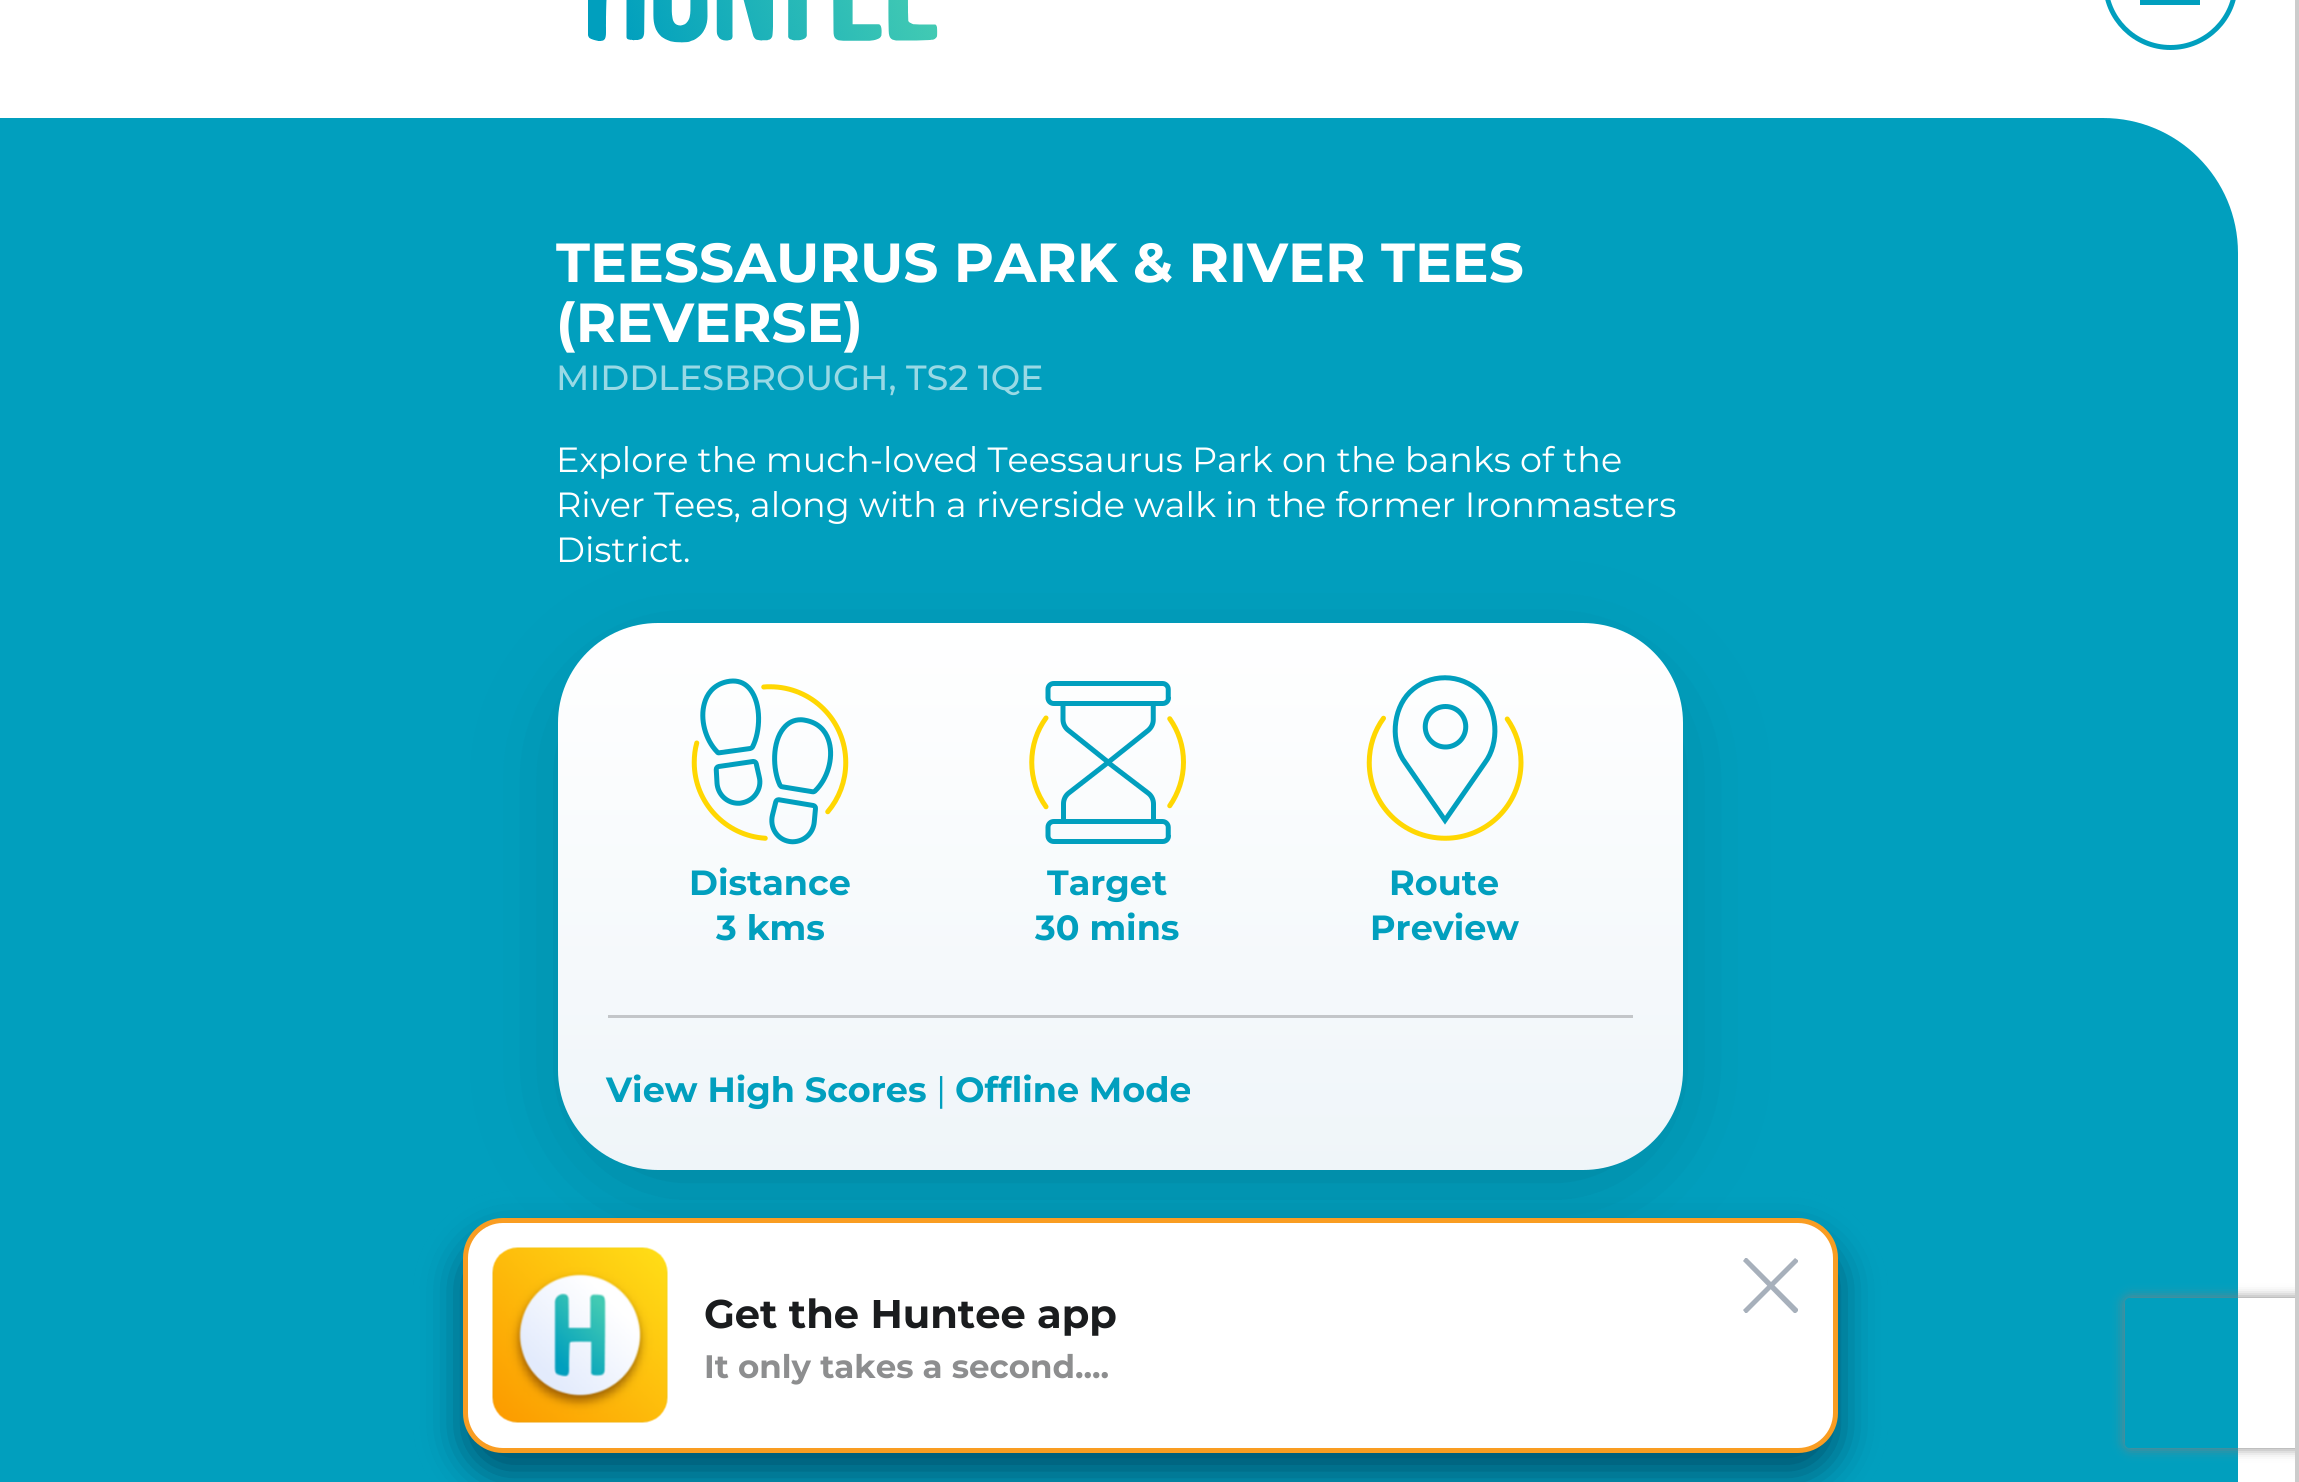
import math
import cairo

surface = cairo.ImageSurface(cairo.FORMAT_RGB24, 2299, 1482)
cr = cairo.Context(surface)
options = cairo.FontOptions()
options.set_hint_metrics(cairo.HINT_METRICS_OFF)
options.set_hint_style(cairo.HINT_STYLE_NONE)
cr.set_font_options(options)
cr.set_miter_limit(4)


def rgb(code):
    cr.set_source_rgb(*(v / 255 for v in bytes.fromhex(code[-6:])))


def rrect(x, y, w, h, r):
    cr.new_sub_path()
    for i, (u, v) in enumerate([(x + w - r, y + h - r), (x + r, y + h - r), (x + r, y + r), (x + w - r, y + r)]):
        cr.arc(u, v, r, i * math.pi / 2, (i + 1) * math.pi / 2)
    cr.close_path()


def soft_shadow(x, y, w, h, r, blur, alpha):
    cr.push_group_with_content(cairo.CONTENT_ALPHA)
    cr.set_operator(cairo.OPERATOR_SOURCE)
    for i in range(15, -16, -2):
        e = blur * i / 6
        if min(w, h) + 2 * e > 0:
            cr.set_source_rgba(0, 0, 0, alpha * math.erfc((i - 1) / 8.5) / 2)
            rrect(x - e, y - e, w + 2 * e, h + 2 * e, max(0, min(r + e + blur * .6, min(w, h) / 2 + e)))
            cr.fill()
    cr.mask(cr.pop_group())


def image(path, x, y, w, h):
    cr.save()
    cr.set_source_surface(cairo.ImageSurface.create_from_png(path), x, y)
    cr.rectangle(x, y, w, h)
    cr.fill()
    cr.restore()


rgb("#ffffff")
cr.paint()
image("img/1.png", 588, 0, 350, 43)
rgb("#019fbe")
cr.new_path()
cr.move_to(0, 118)
cr.line_to(2103, 118)
cr.curve_to(2177.5, 118, 2238, 178.5, 2238, 253)
cr.line_to(2238, 1482)
cr.curve_to(2238, 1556.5, 2177.5, 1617, 2103, 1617)
cr.line_to(0, 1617)
cr.close_path()
cr.fill()
rgb("#000000")
soft_shadow(578, 668, 1085, 507, 80, 50, 0.2)
gradient = cairo.LinearGradient(1120, 1170, 1120, 623)
gradient.add_color_stop_rgba(0, 0.937, 0.961, 0.976, 1)
gradient.add_color_stop_rgba(1, 1, 1, 1, 1)
cr.set_source(gradient)
rrect(558, 623, 1125, 547, 100)
cr.fill()
image("img/2.png", 691, 678, 158, 167)
image("img/3.png", 1029, 681, 157, 163)
image("img/4.png", 1366, 675, 158, 166)
rgb("#c3c6c9")
cr.rectangle(608, 1015, 1025, 3)
cr.fill()
rgb("#004660")
soft_shadow(463, 1240, 1375, 235, 40, 20, 0.85)
rgb("#ffffff")
rrect(465.5, 1220.5, 1370, 230, 37.5)
cr.fill_preserve()
rgb("#f99d22")
cr.set_line_width(5)
cr.stroke()
image("img/5.png", 492, 1247, 176, 176)
cr.save()
cr.rectangle(1743, 1258, 55, 55)
cr.clip()
rgb("#a7b0bb")
cr.new_path()
cr.move_to(1743, 1310)
cr.line_to(1795, 1258)
cr.line_to(1799, 1261)
cr.line_to(1746, 1314)
cr.close_path()
cr.fill()
cr.new_path()
cr.move_to(1743, 1261)
cr.line_to(1746, 1257)
cr.line_to(1799, 1310)
cr.line_to(1795, 1314)
cr.close_path()
cr.fill()
cr.restore()
rrect(2105.5, -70.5, 130, 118, 65)
rgb("#019fbe")
cr.stroke()
cr.rectangle(2140, 0, 60, 5)
cr.fill()
cr.save()
cr.set_fill_rule(cairo.FILL_RULE_EVEN_ODD)
cr.new_path()
cr.move_to(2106, 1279)
cr.line_to(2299, 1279)
cr.line_to(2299, 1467)
cr.line_to(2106, 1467)
cr.close_path()
cr.move_to(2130, 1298)
cr.line_to(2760, 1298)
cr.curve_to(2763, 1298, 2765, 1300, 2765, 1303)
cr.line_to(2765, 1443)
cr.curve_to(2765, 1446, 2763, 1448, 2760, 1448)
cr.line_to(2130, 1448)
cr.curve_to(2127, 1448, 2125, 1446, 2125, 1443)
cr.line_to(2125, 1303)
cr.curve_to(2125, 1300, 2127, 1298, 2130, 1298)
cr.close_path()
cr.clip()
rgb("#808080")
soft_shadow(2125, 1298, 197, 150, 5, 6, 1)
cr.restore()
rgb("#cccccc")
cr.rectangle(2295, 0, 4, 1482)
cr.fill()
cr.select_font_face("Montserrat", cairo.FONT_SLANT_NORMAL, cairo.FONT_WEIGHT_BOLD)
cr.set_font_size(55)
rgb("#ffffff")
cr.move_to(556, 282)
cr.show_text("TEESSAURUS PARK & RIVER TEES")
cr.move_to(556, 342)
cr.show_text("(REVERSE)")
cr.select_font_face("Montserrat Medium")
cr.set_font_size(35)
rgb("#99d9e5")
cr.move_to(556, 390)
cr.show_text("MIDDLESBROUGH, TS2 1QE")
cr.select_font_face("Montserrat")
rgb("#ffffff")
for x, y, s in [
    (556, 472, "Explore the much-loved Teessaurus Park on the banks of the"),
    (556, 517, "River Tees, along with a riverside walk in the former Ironmasters"),
    (556, 562, "District."),
]:
    cr.move_to(x, y)
    cr.show_text(s)
cr.select_font_face("Montserrat", cairo.FONT_SLANT_NORMAL, cairo.FONT_WEIGHT_BOLD)
rgb("#019fbe")
for x, y, s in [
    (689, 895, "Distance"),
    (716, 940, "3 kms"),
    (1047, 895, "Target"),
    (1035, 940, "30 mins"),
    (1389, 895, "Route"),
    (1370, 940, "Preview"),
    (606, 1102, "View High Scores"),
]:
    cr.move_to(x, y)
    cr.show_text(s)
cr.select_font_face("Montserrat")
cr.move_to(936, 1102)
cr.show_text("|")
cr.select_font_face("Montserrat", cairo.FONT_SLANT_NORMAL, cairo.FONT_WEIGHT_BOLD)
cr.move_to(955, 1102)
cr.show_text("Offline Mode")
cr.set_font_size(40)
rgb("#1a1c1e")
cr.move_to(704, 1328)
cr.show_text("Get the Huntee app")
cr.set_font_size(32.5)
rgb("#8d8e8f")
cr.move_to(704, 1378)
cr.show_text("It only takes a second....")
surface.write_to_png("page.png")
